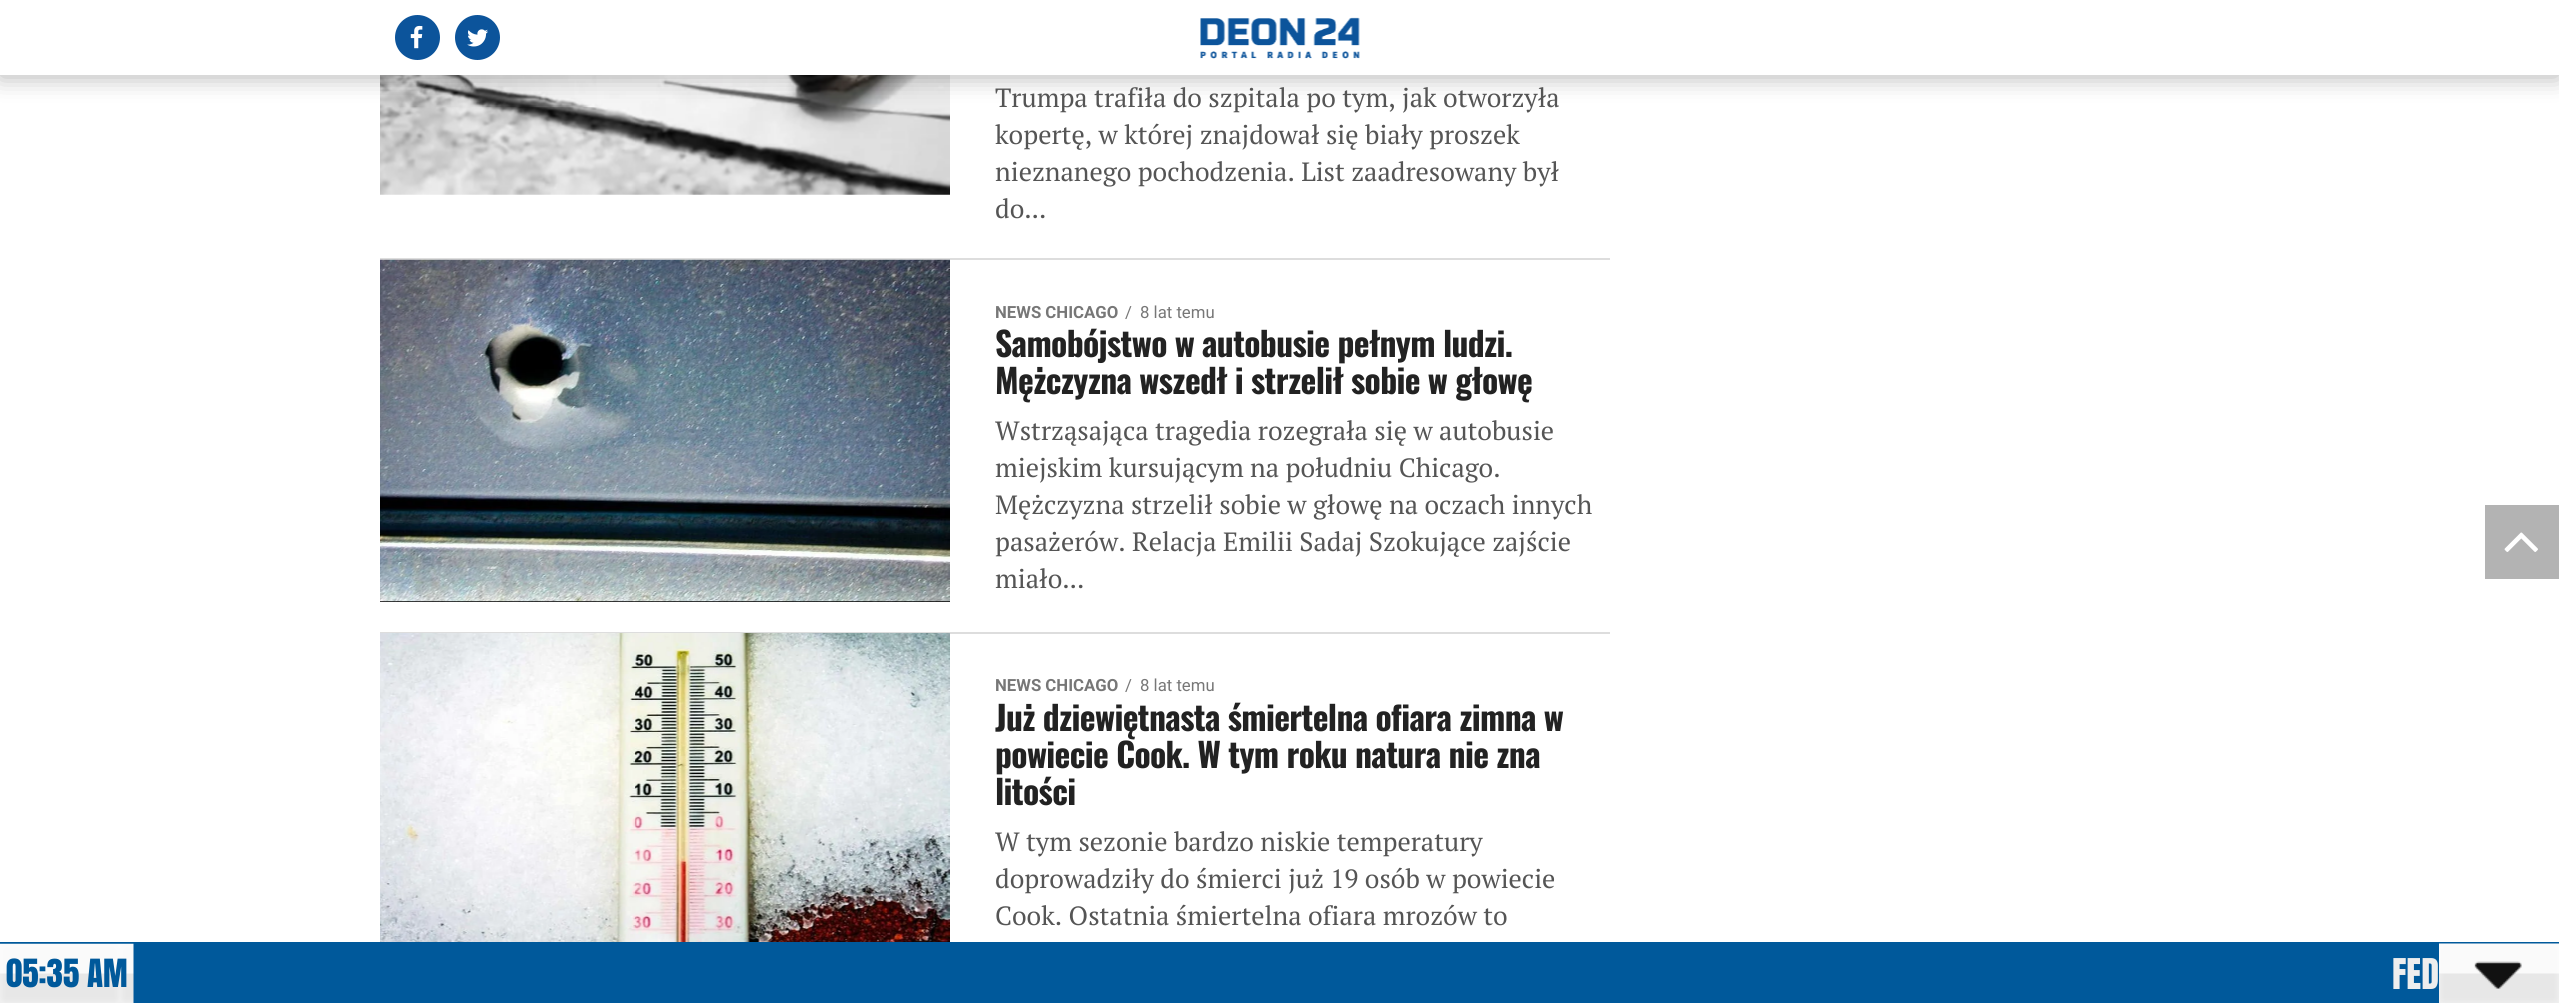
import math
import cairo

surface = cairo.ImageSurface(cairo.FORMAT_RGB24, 2559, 1003)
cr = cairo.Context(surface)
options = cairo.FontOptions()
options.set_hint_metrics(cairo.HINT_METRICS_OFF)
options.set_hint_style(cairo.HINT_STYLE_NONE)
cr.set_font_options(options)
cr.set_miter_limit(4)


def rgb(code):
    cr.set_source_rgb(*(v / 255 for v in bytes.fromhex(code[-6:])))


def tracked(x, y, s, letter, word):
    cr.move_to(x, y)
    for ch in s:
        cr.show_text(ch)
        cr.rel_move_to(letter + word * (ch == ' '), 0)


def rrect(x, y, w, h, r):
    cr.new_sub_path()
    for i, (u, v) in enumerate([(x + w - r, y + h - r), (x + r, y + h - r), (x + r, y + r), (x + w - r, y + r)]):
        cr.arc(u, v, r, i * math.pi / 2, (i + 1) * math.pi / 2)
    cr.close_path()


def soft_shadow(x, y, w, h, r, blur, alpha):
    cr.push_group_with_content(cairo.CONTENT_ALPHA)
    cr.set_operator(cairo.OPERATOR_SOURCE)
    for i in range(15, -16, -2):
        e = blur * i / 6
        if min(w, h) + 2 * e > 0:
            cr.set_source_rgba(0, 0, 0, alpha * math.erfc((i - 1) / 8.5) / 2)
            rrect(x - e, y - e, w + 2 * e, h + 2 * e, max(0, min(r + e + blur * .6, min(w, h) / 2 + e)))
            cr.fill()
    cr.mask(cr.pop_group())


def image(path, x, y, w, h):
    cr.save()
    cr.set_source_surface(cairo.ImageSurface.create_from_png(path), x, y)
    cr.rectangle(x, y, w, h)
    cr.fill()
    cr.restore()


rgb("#ffffff")
cr.paint()
image("img/4.png", 380, 75, 570, 120)
rgb("#000000")
soft_shadow(0, 2, 2559, 75, 0, 12, 0.3)
rgb("#ffffff")
cr.rectangle(0, 0, 2559, 75)
cr.fill()
rgb("#0c549b")
cr.arc(417.5, 37.5, 22.5, 0, 2 * math.pi)
cr.fill()
image("img/1.png", 410, 25, 13, 24)
cr.arc(477.5, 37.5, 22.5, 0, 2 * math.pi)
cr.fill()
image("img/2.png", 467, 29, 21, 18)
image("img/3.png", 1200, 17, 160, 42)
rgb("#dddddd")
cr.rectangle(380, 258, 1230, 2)
cr.fill()
rgb("#000000")
cr.rectangle(380, 601, 570, 1)
cr.fill()
image("img/5.png", 380, 259, 570, 343)
rgb("#dddddd")
cr.rectangle(380, 632, 1230, 2)
cr.fill()
image("img/6.png", 380, 633, 570, 309)
rgb("#b3b3b3")
cr.rectangle(2485, 505, 74, 74)
cr.fill()
image("img/7.png", 2504, 532, 34, 20)
rgb("#00599b")
cr.rectangle(0, 942, 2559, 61)
cr.fill()
image("img/8.png", 0, 943, 134, 60)
image("img/9.png", 2439, 943, 120, 60)
cr.select_font_face("PT Serif")
cr.set_font_size(26.4)
rgb("#555555")
for x, y, s in [
    (995, 107, "Trumpa trafiła do szpitala po tym, jak otworzyła"),
    (995, 144, "kopertę, w której znajdował się biały proszek"),
    (995, 181, "nieznanego pochodzenia. List zaadresowany był"),
    (995, 218, "do..."),
]:
    cr.move_to(x, y)
    cr.show_text(s)
cr.select_font_face("Roboto", cairo.FONT_SLANT_NORMAL, cairo.FONT_WEIGHT_BOLD)
cr.set_font_size(16.75)
rgb("#777777")
cr.move_to(995, 318)
cr.show_text("NEWS CHICAGO")
cr.select_font_face("Roboto")
cr.move_to(1125, 318)
cr.show_text("/")
cr.move_to(1140, 318)
cr.show_text("8 lat temu")
cr.select_font_face("Oswald", cairo.FONT_SLANT_NORMAL, cairo.FONT_WEIGHT_BOLD)
cr.set_font_size(33.6)
rgb("#222222")
tracked(995, 357, "Samobójstwo w autobusie pełnym ludzi.", -0.65, 0)
tracked(995, 394, "Mężczyzna wszedł i strzelił sobie w głowę", -0.65, 0)
cr.select_font_face("PT Serif")
cr.set_font_size(26.4)
rgb("#555555")
for x, y, s in [
    (995, 440, "Wstrząsająca tragedia rozegrała się w autobusie"),
    (995, 477, "miejskim kursującym na południu Chicago."),
    (995, 514, "Mężczyzna strzelił sobie w głowę na oczach innych"),
    (995, 551, "pasażerów. Relacja Emilii Sadaj Szokujące zajście"),
    (995, 588, "miało..."),
]:
    cr.move_to(x, y)
    cr.show_text(s)
cr.select_font_face("Roboto", cairo.FONT_SLANT_NORMAL, cairo.FONT_WEIGHT_BOLD)
cr.set_font_size(16.75)
rgb("#777777")
cr.move_to(995, 691)
cr.show_text("NEWS CHICAGO")
cr.select_font_face("Roboto")
cr.move_to(1125, 691)
cr.show_text("/")
cr.move_to(1140, 691)
cr.show_text("8 lat temu")
cr.select_font_face("Oswald", cairo.FONT_SLANT_NORMAL, cairo.FONT_WEIGHT_BOLD)
cr.set_font_size(33.6)
rgb("#222222")
for x, y, s in [
    (995, 731, "Już dziewiętnasta śmiertelna ofiara zimna w"),
    (995, 768, "powiecie Cook. W tym roku natura nie zna"),
    (995, 805, "litości"),
]:
    tracked(x, y, s, -0.65, 0)
cr.select_font_face("PT Serif")
cr.set_font_size(26.4)
rgb("#555555")
for x, y, s in [
    (995, 851, "W tym sezonie bardzo niskie temperatury"),
    (995, 888, "doprowadziły do śmierci już 19 osób w powiecie"),
    (995, 925, "Cook. Ostatnia śmiertelna ofiara mrozów to"),
]:
    cr.move_to(x, y)
    cr.show_text(s)
cr.select_font_face("Anton")
cr.set_font_size(33)
rgb("#00599b")
cr.move_to(6, 987)
cr.show_text("05:35 AM")
cr.set_font_size(36)
rgb("#eeeeee")
cr.move_to(2392, 989)
cr.show_text("FED")
surface.write_to_png("page.png")
